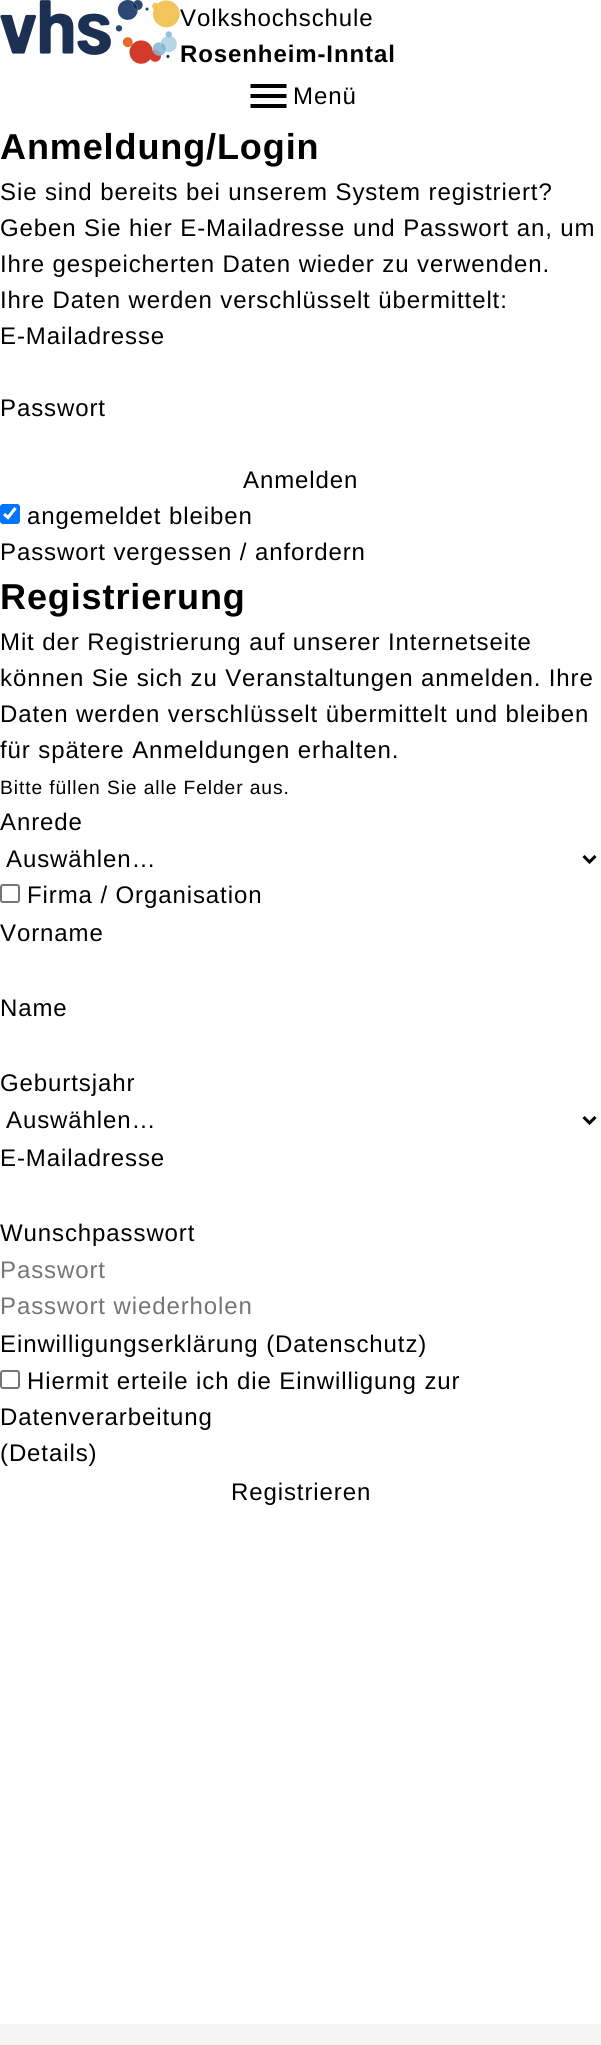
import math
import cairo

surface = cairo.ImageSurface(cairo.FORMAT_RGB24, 601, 2045)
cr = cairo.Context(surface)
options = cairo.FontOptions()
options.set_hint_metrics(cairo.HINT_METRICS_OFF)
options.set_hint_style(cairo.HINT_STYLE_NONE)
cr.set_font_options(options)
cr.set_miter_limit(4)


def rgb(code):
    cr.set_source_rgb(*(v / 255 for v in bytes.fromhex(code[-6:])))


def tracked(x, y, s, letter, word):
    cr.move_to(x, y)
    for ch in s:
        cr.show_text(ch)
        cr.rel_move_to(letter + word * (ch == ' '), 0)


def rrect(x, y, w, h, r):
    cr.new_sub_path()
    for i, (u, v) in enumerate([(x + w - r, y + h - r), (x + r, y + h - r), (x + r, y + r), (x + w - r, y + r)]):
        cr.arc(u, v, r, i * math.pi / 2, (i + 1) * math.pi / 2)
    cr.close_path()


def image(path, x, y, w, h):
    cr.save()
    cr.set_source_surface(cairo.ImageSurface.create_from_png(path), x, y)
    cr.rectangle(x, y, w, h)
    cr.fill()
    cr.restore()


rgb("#ffffff")
cr.paint()
image("img/1.png", 0, 0, 180, 64)
image("img/2.png", 250, 84, 37, 24)
rgb("#0075ff")
rrect(0, 504, 20, 20, 3)
cr.fill()
cr.new_path()
cr.move_to(4, 514)
cr.line_to(8, 517.5)
cr.line_to(15.5, 508)
rgb("#ffffff")
cr.set_line_width(3.1)
cr.stroke()
cr.new_path()
cr.move_to(583.5, 856)
cr.line_to(589.5, 862)
cr.line_to(595.5, 856)
rgb("#000000")
cr.set_line_width(3)
cr.stroke()
rrect(1, 885, 18, 17, 2)
rgb("#767676")
cr.set_line_width(2)
cr.stroke()
cr.new_path()
cr.move_to(583.5, 1117)
cr.line_to(589.5, 1123)
cr.line_to(595.5, 1117)
rgb("#000000")
cr.set_line_width(3)
cr.stroke()
rrect(1, 1371, 18, 17, 2)
rgb("#767676")
cr.set_line_width(2)
cr.stroke()
rgb("#f5f5f5")
cr.rectangle(0, 2024, 601, 21)
cr.fill()
cr.select_font_face("Liberation Sans")
cr.set_font_size(24)
rgb("#000000")
tracked(180, 26, "Volkshochschule", 0.9, 0)
cr.select_font_face("Liberation Sans", cairo.FONT_SLANT_NORMAL, cairo.FONT_WEIGHT_BOLD)
tracked(180, 62, "Rosenheim-Inntal", 0.9, 0)
cr.select_font_face("Liberation Sans")
tracked(293, 104, "Menü", 0.9, 0)
cr.select_font_face("Liberation Sans", cairo.FONT_SLANT_NORMAL, cairo.FONT_WEIGHT_BOLD)
cr.set_font_size(36)
tracked(0, 159, "Anmeldung/Login", 0.9, 0)
cr.select_font_face("Liberation Sans")
cr.set_font_size(24)
for x, y, s in [
    (0, 200, "Sie sind bereits bei unserem System registriert?"),
    (0, 236, "Geben Sie hier E-Mailadresse und Passwort an, um"),
    (0, 272, "Ihre gespeicherten Daten wieder zu verwenden."),
    (0, 308, "Ihre Daten werden verschlüsselt übermittelt:"),
    (0, 344, "E-Mailadresse"),
    (0, 416, "Passwort"),
    (243, 488, "Anmelden"),
    (27, 524, "angemeldet bleiben"),
    (0, 560, "Passwort vergessen / anfordern"),
]:
    tracked(x, y, s, 0.9, 0)
cr.select_font_face("Liberation Sans", cairo.FONT_SLANT_NORMAL, cairo.FONT_WEIGHT_BOLD)
cr.set_font_size(36)
tracked(0, 609, "Registrierung", 0.9, 0)
cr.select_font_face("Liberation Sans")
cr.set_font_size(24)
for x, y, s in [
    (0, 650, "Mit der Registrierung auf unserer Internetseite"),
    (0, 686, "können Sie sich zu Veranstaltungen anmelden. Ihre"),
    (0, 722, "Daten werden verschlüsselt übermittelt und bleiben"),
    (0, 758, "für spätere Anmeldungen erhalten."),
]:
    tracked(x, y, s, 0.9, 0)
cr.set_font_size(19.25)
tracked(0, 794, "Bitte füllen Sie alle Felder aus.", 0.9, 0)
cr.set_font_size(24)
for x, y, s in [
    (0, 830, "Anrede"),
    (6, 867, "Auswählen…"),
    (27, 903, "Firma / Organisation"),
    (0, 941, "Vorname"),
    (0, 1016, "Name"),
    (0, 1091, "Geburtsjahr"),
    (6, 1128, "Auswählen…"),
    (0, 1166, "E-Mailadresse"),
    (0, 1241, "Wunschpasswort"),
]:
    tracked(x, y, s, 0.9, 0)
rgb("#757575")
tracked(0, 1278, "Passwort", 0.9, 0)
tracked(0, 1314, "Passwort wiederholen", 0.9, 0)
rgb("#000000")
for x, y, s in [
    (0, 1352, "Einwilligungserklärung (Datenschutz)"),
    (27, 1389, "Hiermit erteile ich die Einwilligung zur"),
    (0, 1425, "Datenverarbeitung"),
    (0, 1461, "(Details)"),
    (231, 1500, "Registrieren"),
]:
    tracked(x, y, s, 0.9, 0)
surface.write_to_png("page.png")
